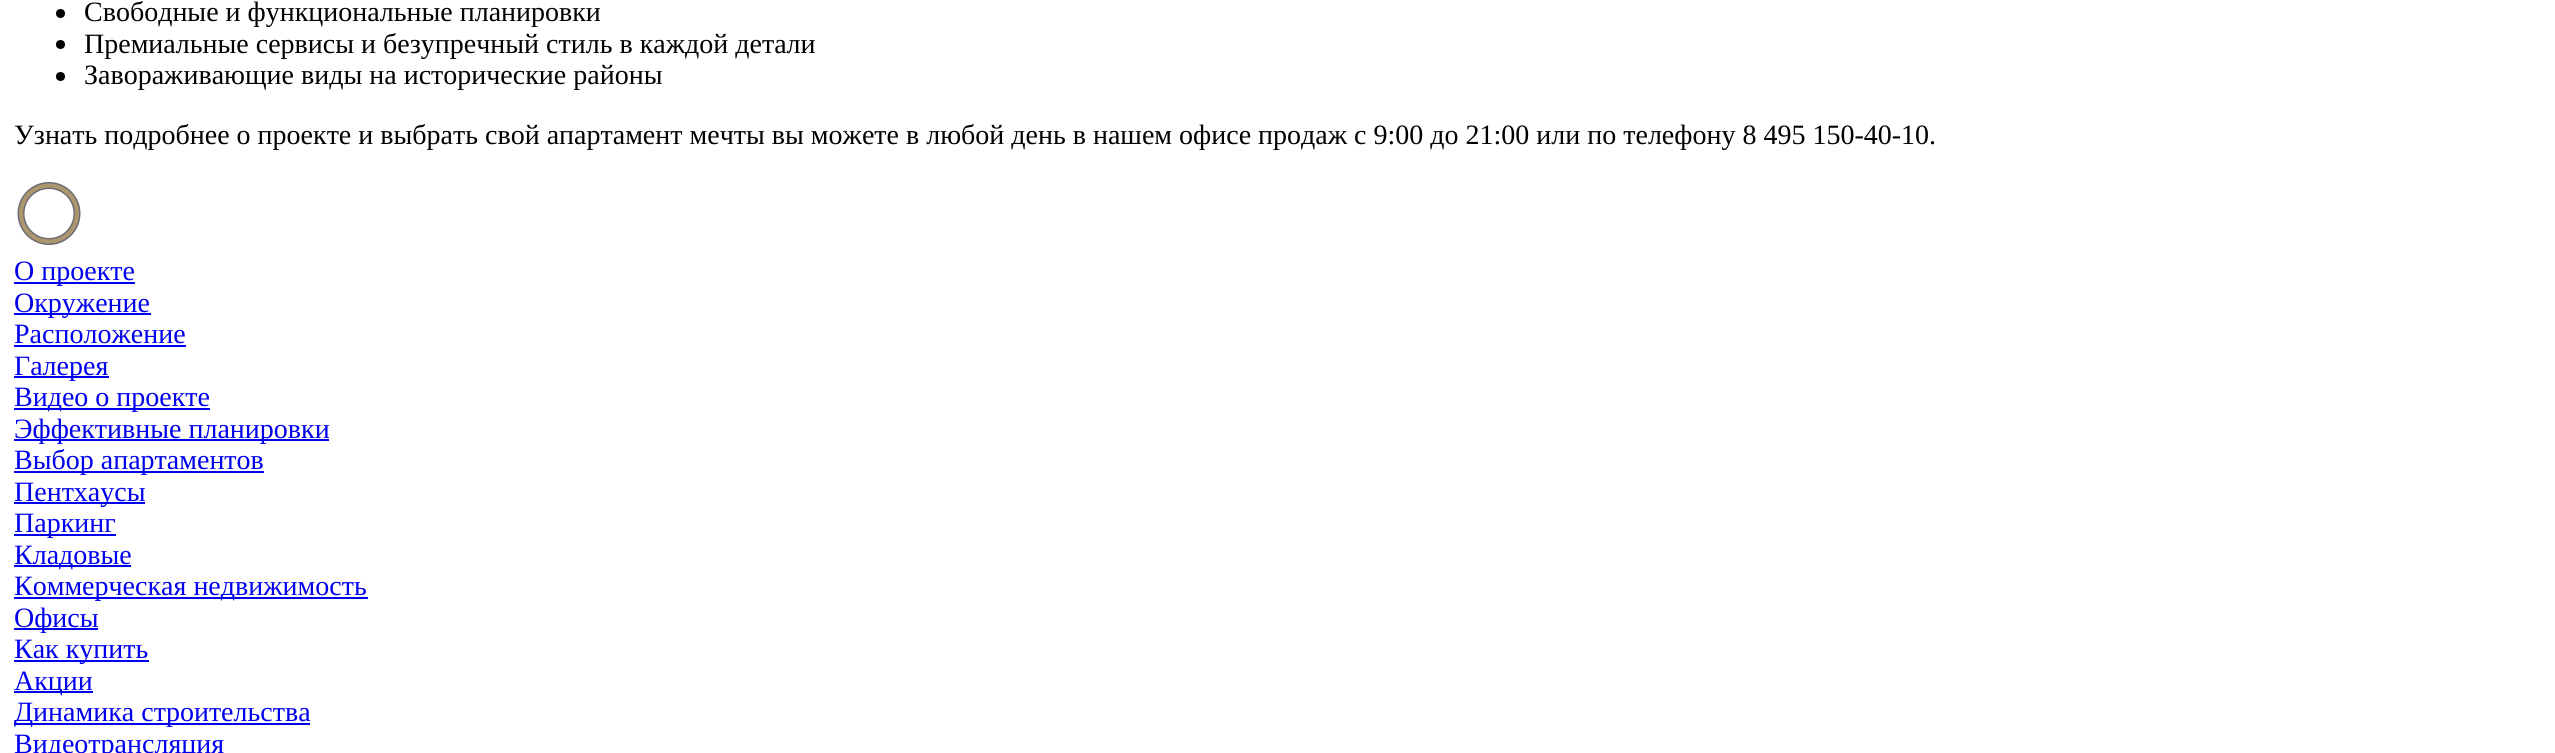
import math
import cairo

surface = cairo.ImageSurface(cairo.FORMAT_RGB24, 2555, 753)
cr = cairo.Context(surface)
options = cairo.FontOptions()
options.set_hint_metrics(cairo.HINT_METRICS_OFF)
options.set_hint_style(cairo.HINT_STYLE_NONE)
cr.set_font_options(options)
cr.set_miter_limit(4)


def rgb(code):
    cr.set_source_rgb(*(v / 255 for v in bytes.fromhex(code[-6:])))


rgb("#ffffff")
cr.paint()
rgb("#000000")
cr.arc(60.5, 13.5, 4.5, 0, 2 * math.pi)
cr.fill()
cr.arc(60.5, 44.5, 4.5, 0, 2 * math.pi)
cr.fill()
cr.arc(60.5, 76.5, 4.5, 0, 2 * math.pi)
cr.fill()
cr.arc(49, 213.5, 28, 0, 2 * math.pi)
rgb("#696973")
cr.set_line_width(7)
cr.stroke()
cr.arc(49, 213.5, 28, 0, 2 * math.pi)
rgb("#ac966d")
cr.set_line_width(4.2)
cr.stroke()
for x, y, w, h, color in [
    (14, 282, 121, 2, "#0000ee"),
    (14, 313, 137, 2, "#0000ee"),
    (14, 345, 172, 2, "#0000ee"),
    (14, 376, 95, 2, "#0000ee"),
    (14, 408, 196, 2, "#0000ee"),
    (14, 439, 315, 2, "#0000ee"),
    (14, 471, 250, 2, "#0000ee"),
    (14, 502, 131, 2, "#0000ee"),
    (14, 534, 102, 2, "#0000ee"),
    (14, 565, 117, 2, "#0000ee"),
    (14, 597, 354, 2, "#0000ee"),
    (14, 628, 84, 2, "#0000ee"),
    (14, 660, 135, 2, "#0000ee"),
    (14, 691, 79, 2, "#0000ee"),
    (14, 723, 296, 2, "#0000ee"),
]:
    rgb(color)
    cr.rectangle(x, y, w, h)
    cr.fill()
cr.select_font_face("Liberation Serif")
cr.set_font_size(28)
rgb("#000000")
for x, y, s in [
    (84, 21, "Свободные и функциональные планировки"),
    (84, 53, "Премиальные сервисы и безупречный стиль в каждой детали"),
    (84, 84, "Завораживающие виды на исторические районы"),
    (14, 144, "Узнать подробнее о проекте и выбрать свой апартамент мечты вы можете в любой день в нашем офисе продаж с 9:00 до 21:00 или по телефону 8 495 150-40-10."),
]:
    cr.move_to(x, y)
    cr.show_text(s)
rgb("#0000ee")
for x, y, s in [
    (14, 280, "О проекте"),
    (14, 312, "Окружение"),
    (14, 343, "Расположение"),
    (14, 375, "Галерея"),
    (14, 406, "Видео о проекте"),
    (14, 438, "Эффективные планировки"),
    (14, 469, "Выбор апартаментов"),
    (14, 501, "Пентхаусы"),
    (14, 532, "Паркинг"),
    (14, 564, "Кладовые"),
    (14, 595, "Коммерческая недвижимость"),
    (14, 627, "Офисы"),
    (14, 658, "Как купить"),
    (14, 690, "Акции"),
    (14, 721, "Динамика строительства"),
    (14, 753, "Видеотрансляция"),
]:
    cr.move_to(x, y)
    cr.show_text(s)
surface.write_to_png("page.png")
